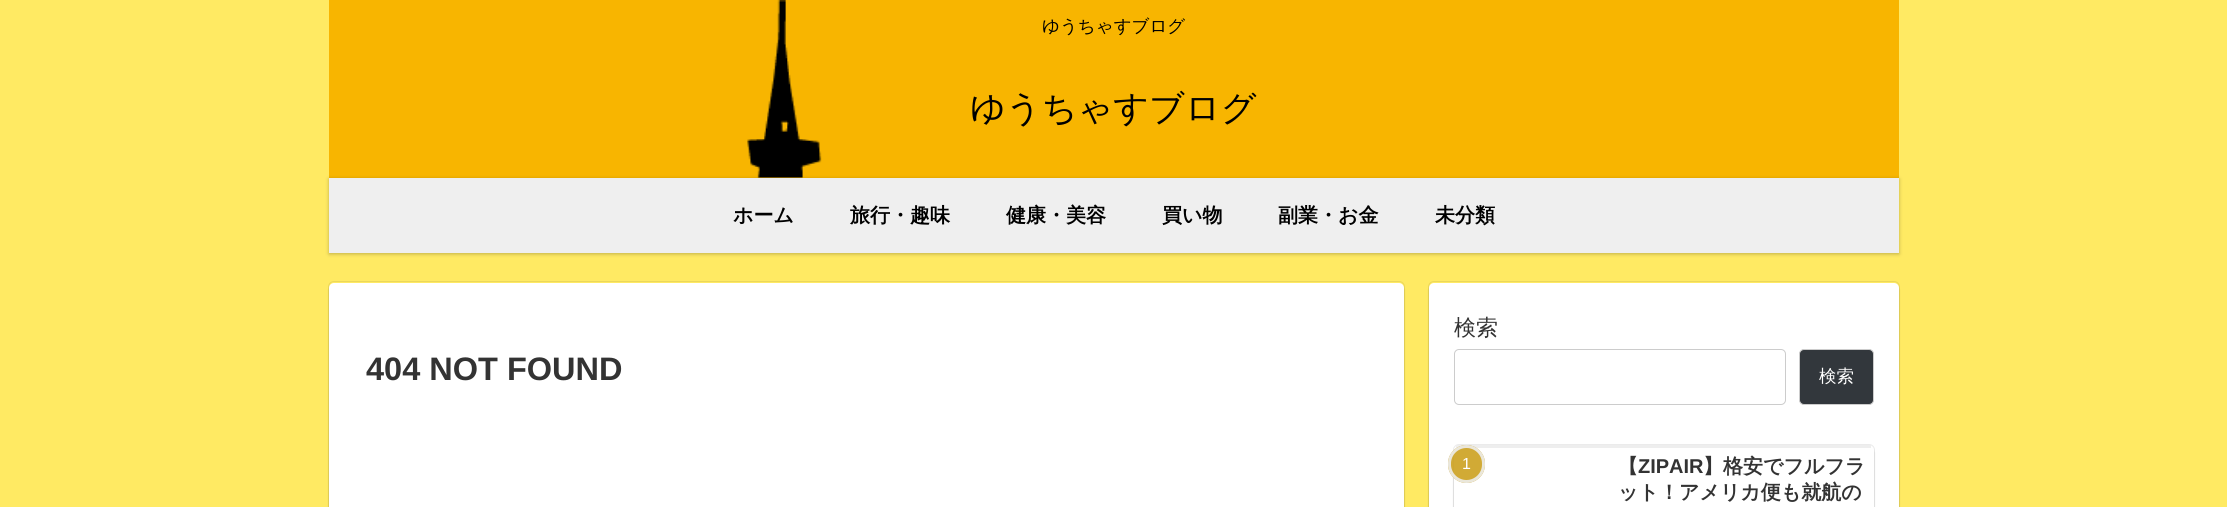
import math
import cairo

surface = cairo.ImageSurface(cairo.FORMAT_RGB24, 2227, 507)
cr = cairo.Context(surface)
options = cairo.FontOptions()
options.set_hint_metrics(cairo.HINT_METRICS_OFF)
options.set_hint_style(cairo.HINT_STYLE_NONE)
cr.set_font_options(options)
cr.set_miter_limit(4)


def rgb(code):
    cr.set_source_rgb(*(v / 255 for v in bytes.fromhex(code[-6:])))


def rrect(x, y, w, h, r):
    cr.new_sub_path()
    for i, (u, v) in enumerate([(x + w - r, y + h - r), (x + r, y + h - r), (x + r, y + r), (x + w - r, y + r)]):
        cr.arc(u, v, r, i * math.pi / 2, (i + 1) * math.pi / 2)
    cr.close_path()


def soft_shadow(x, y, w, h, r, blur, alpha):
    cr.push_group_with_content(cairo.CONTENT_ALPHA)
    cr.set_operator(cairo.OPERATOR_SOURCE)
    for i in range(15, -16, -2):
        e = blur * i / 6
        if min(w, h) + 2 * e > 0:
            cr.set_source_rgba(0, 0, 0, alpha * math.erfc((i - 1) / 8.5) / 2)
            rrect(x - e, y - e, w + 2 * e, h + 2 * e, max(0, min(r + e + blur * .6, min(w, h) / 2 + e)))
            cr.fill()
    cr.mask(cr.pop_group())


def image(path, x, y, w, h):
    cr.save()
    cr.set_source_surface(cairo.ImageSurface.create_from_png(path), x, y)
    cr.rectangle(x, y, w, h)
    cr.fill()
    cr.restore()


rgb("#ffea63")
cr.paint()
rgb("#f8b500")
cr.rectangle(329, 0, 1570, 178)
cr.fill()
image("img/1.png", 747, 0, 75, 178)
rgb("#000000")
soft_shadow(329, 179, 1570, 75, 0, 2, 0.25)
rgb("#efefef")
cr.rectangle(329, 178, 1570, 75)
cr.fill()
rrect(328.5, 281.5, 1076, 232, 5.5)
rgb("#ebd75b")
cr.set_line_width(1)
cr.stroke()
rgb("#000000")
soft_shadow(329, 285, 1075, 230, 5, 1, 0.16)
rgb("#ffffff")
rrect(329, 283, 1075, 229, 5)
cr.fill()
rrect(1428.5, 281.5, 471, 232, 5.5)
rgb("#ebd75b")
cr.stroke()
rgb("#000000")
soft_shadow(1429, 285, 470, 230, 5, 1, 0.16)
rgb("#ffffff")
rrect(1429, 283, 470, 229, 5)
cr.fill()
rrect(1454.5, 349.5, 331, 55, 4.5)
rgb("#cccccc")
cr.stroke()
rgb("#32373c")
rrect(1799.5, 349.5, 74, 55, 4.5)
cr.fill_preserve()
rgb("#cccccc")
cr.stroke()
rrect(1453.5, 444.5, 421, 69, 5.5)
rgb("#ebebeb")
cr.stroke()
cr.save()
cr.set_fill_rule(cairo.FILL_RULE_EVEN_ODD)
cr.new_path()
cr.move_to(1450, 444)
cr.line_to(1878, 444)
cr.line_to(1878, 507)
cr.line_to(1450, 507)
cr.close_path()
cr.move_to(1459, 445)
cr.line_to(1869, 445)
cr.curve_to(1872, 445, 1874, 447, 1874, 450)
cr.line_to(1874, 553)
cr.curve_to(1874, 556, 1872, 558, 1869, 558)
cr.line_to(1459, 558)
cr.curve_to(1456, 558, 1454, 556, 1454, 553)
cr.line_to(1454, 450)
cr.curve_to(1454, 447, 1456, 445, 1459, 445)
cr.close_path()
cr.clip()
rgb("#000000")
soft_shadow(1454, 448, 420, 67, 5, 1, 0.16)
cr.restore()
rgb("#eeeeee")
cr.rectangle(1456, 445, 415, 3)
cr.fill()
cr.set_source_rgba(0.8, 0.631, 0.122, 0.9)
rrect(1448, 445, 37, 38, 18.5)
cr.fill()
rrect(1449.5, 446.5, 34, 35, 17)
cr.set_source_rgba(0.933, 0.933, 0.933, 0.9)
cr.set_line_width(3)
cr.stroke()
cr.select_font_face("WenQuanYi Zen Hei Medium")
cr.set_font_size(17.5)
rgb("#000000")
cr.move_to(1042, 32)
cr.show_text("ゆうちゃすブログ")
cr.set_font_size(35)
cr.move_to(970, 120)
cr.show_text("ゆうちゃすブログ")
cr.select_font_face("WenQuanYi Zen Hei", cairo.FONT_SLANT_NORMAL, cairo.FONT_WEIGHT_BOLD)
cr.set_font_size(20)
for x, y, s in [
    (733, 222, "ホーム"),
    (850, 222, "旅行・趣味"),
    (1006, 222, "健康・美容"),
    (1162, 222, "買い物"),
    (1278, 222, "副業・お金"),
    (1435, 222, "未分類"),
]:
    cr.move_to(x, y)
    cr.show_text(s)
cr.select_font_face("Liberation Sans", cairo.FONT_SLANT_NORMAL, cairo.FONT_WEIGHT_BOLD)
cr.set_font_size(32.5)
rgb("#333333")
cr.move_to(366, 380)
cr.show_text("404 NOT FOUND")
cr.select_font_face("WenQuanYi Zen Hei Medium")
cr.set_font_size(22)
cr.move_to(1454, 335)
cr.show_text("検索")
cr.set_font_size(17.5)
rgb("#ffffff")
cr.move_to(1819, 382)
cr.show_text("検索")
cr.select_font_face("Liberation Sans")
cr.set_font_size(16)
cr.move_to(1462, 469)
cr.show_text("1")
cr.select_font_face("WenQuanYi Zen Hei", cairo.FONT_SLANT_NORMAL, cairo.FONT_WEIGHT_BOLD)
cr.set_font_size(20)
rgb("#333333")
cr.move_to(1618, 473)
cr.show_text("【")
cr.select_font_face("Liberation Sans", cairo.FONT_SLANT_NORMAL, cairo.FONT_WEIGHT_BOLD)
cr.move_to(1638, 473)
cr.show_text("ZIPAIR")
cr.select_font_face("WenQuanYi Zen Hei", cairo.FONT_SLANT_NORMAL, cairo.FONT_WEIGHT_BOLD)
cr.move_to(1703, 473)
cr.show_text("】格安でフルフラ")
cr.move_to(1618, 499)
cr.show_text("ット！アメリカ便も就航の")
surface.write_to_png("page.png")
